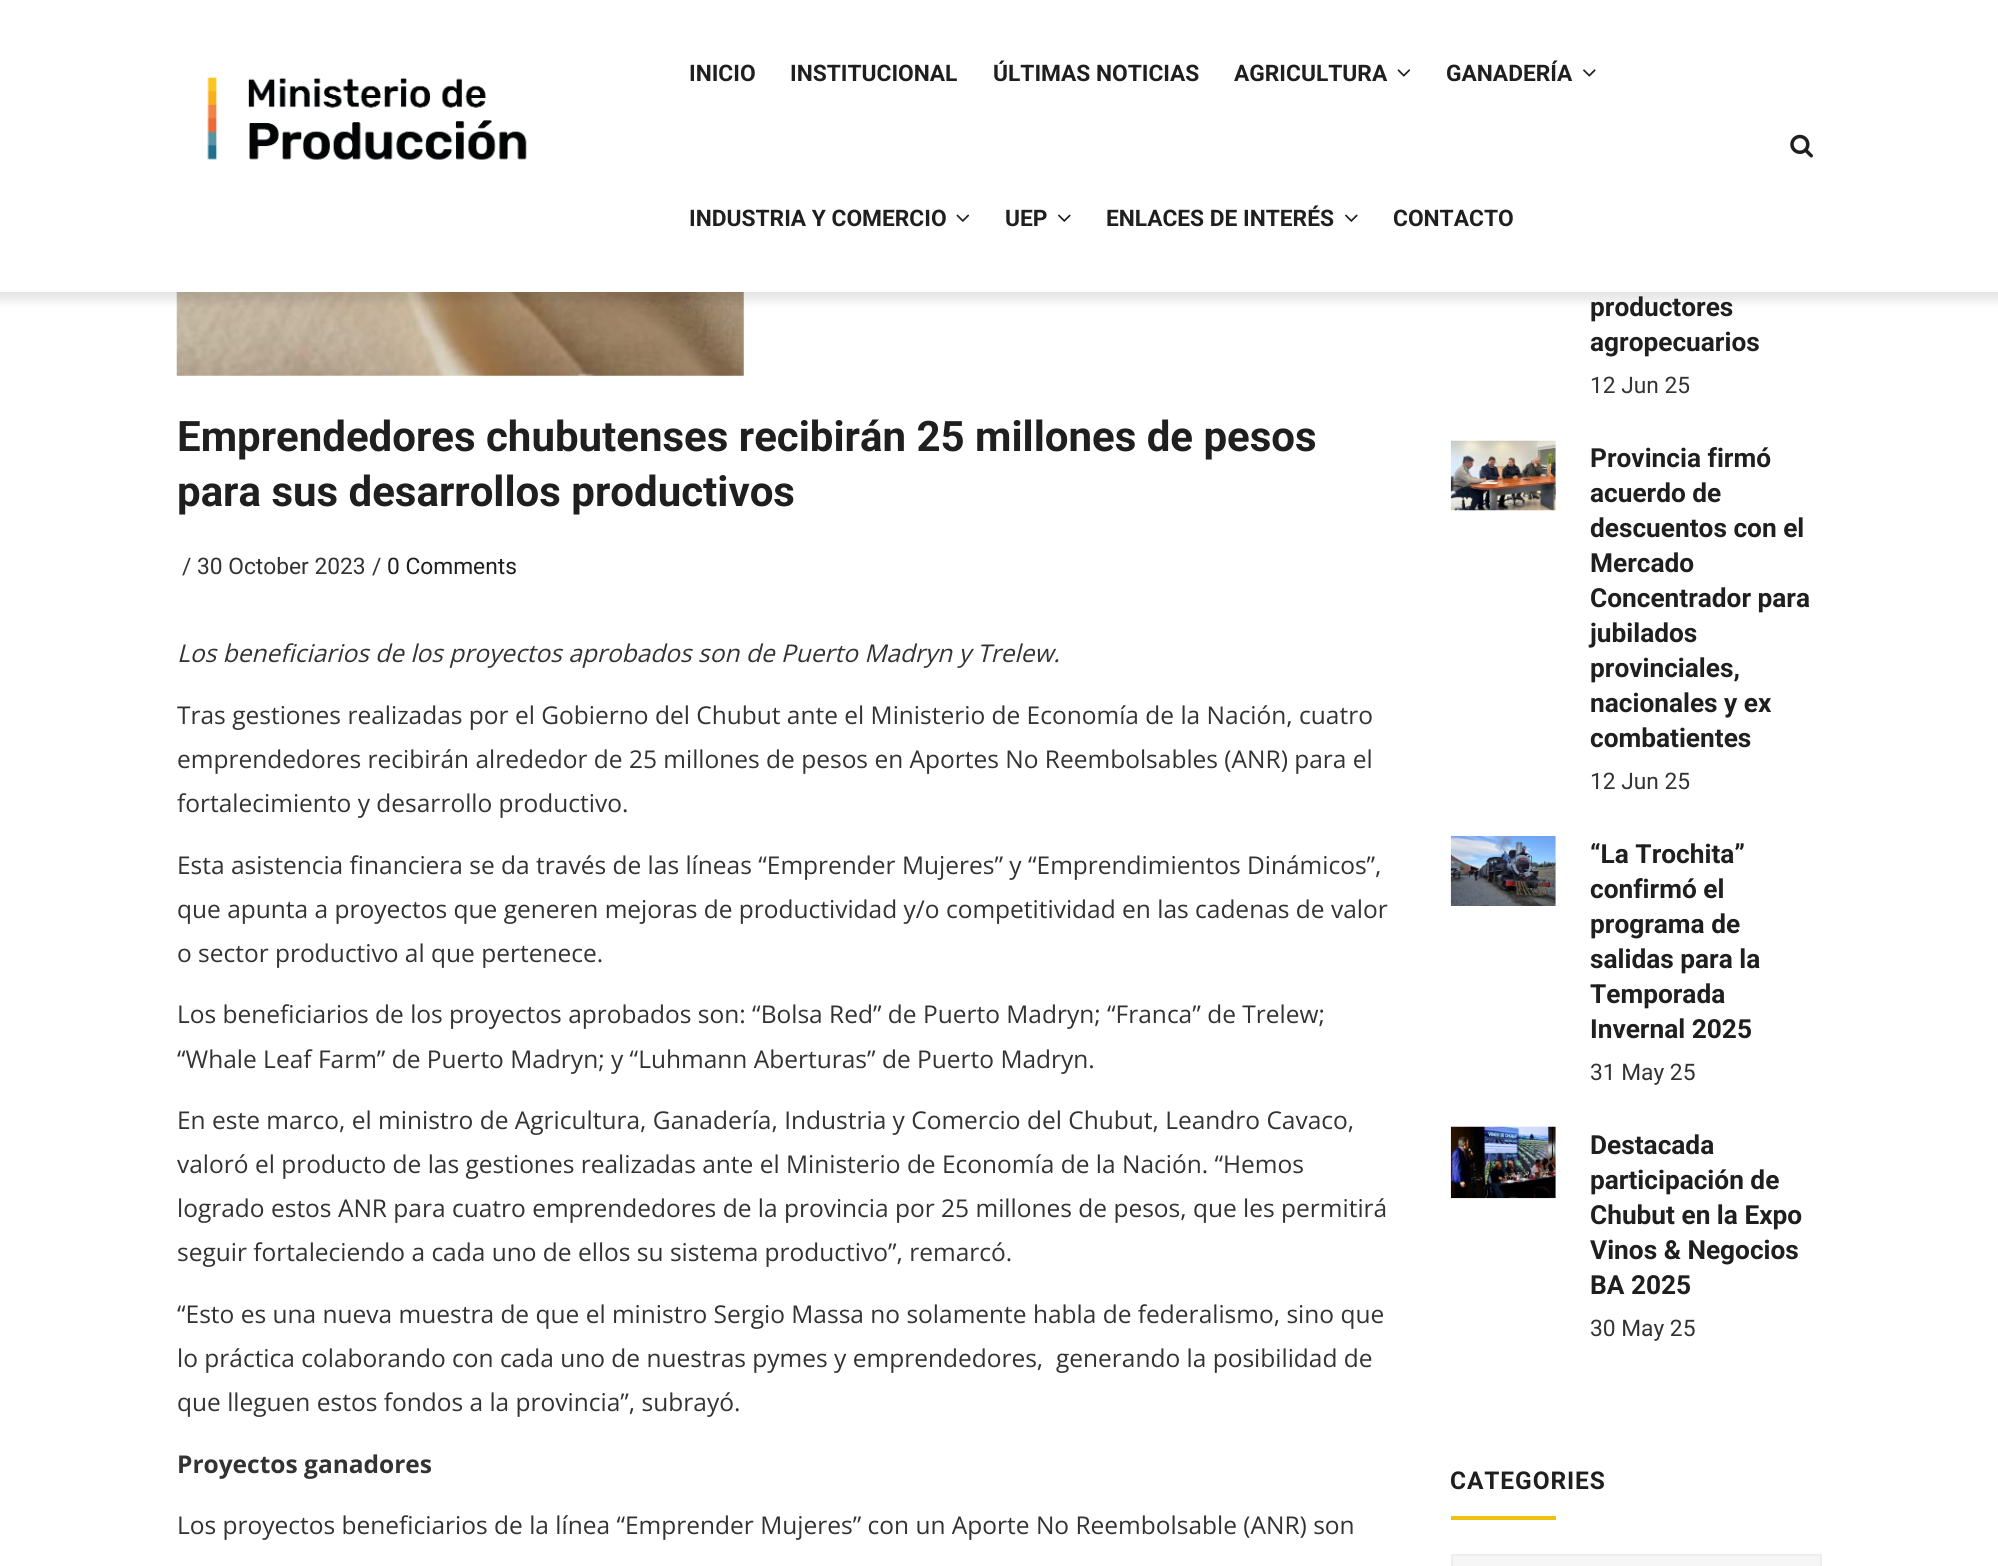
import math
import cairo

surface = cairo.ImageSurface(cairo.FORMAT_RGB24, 1998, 1566)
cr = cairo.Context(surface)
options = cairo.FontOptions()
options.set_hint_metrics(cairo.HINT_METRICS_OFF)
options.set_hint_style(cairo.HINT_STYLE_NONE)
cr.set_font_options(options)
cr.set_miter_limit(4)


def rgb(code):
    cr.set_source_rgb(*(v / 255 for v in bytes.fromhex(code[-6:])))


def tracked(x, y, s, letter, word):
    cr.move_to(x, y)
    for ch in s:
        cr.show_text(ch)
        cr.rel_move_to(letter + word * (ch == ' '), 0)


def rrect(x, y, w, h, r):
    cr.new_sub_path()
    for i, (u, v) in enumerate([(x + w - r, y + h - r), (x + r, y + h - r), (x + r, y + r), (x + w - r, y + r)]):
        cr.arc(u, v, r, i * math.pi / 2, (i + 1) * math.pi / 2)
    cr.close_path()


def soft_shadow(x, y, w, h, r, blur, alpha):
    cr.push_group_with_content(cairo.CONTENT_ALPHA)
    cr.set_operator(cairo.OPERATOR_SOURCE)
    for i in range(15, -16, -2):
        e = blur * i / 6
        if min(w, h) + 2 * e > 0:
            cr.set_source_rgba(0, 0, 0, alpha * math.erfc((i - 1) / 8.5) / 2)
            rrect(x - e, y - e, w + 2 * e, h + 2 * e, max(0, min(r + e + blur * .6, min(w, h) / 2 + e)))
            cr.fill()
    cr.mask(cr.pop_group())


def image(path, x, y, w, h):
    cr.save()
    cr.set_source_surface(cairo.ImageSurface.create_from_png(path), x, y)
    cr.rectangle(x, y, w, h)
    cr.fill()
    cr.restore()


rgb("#ffffff")
cr.paint()
image("img/7.png", 176, 292, 568, 84)
rgb("#000000")
soft_shadow(-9, -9, 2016, 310, 0, 4.5, 0.1)
rgb("#ffffff")
cr.rectangle(0, 0, 1998, 292)
cr.fill()
image("img/1.png", 207, 77, 320, 83)
image("img/2.png", 1397, 69, 14, 8)
image("img/3.png", 1583, 69, 13, 8)
image("img/4.png", 956, 214, 14, 8)
image("img/5.png", 1058, 214, 13, 8)
image("img/5.png", 1345, 214, 13, 8)
image("img/6.png", 1790, 134, 23, 24)
image("img/8.png", 1450, 440, 106, 71)
image("img/9.png", 1450, 836, 106, 70)
image("img/10.png", 1450, 1126, 106, 73)
rgb("#ecc311")
cr.rectangle(1451, 1516, 105, 4)
cr.fill()
rgb("#f6f6f6")
cr.rectangle(1452, 1555, 369, 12)
cr.fill_preserve()
rgb("#eeeeee")
cr.stroke()
cr.select_font_face("Roboto", cairo.FONT_SLANT_NORMAL, cairo.FONT_WEIGHT_BOLD)
cr.set_font_size(22.75)
rgb("#1f1f1f")
for x, y, s in [
    (689, 81, "INICIO"),
    (790, 81, "INSTITUCIONAL"),
    (993, 81, "ÚLTIMAS NOTICIAS"),
    (1234, 81, "AGRICULTURA"),
    (1446, 81, "GANADERÍA"),
    (689, 226, "INDUSTRIA Y COMERCIO"),
    (1005, 226, "UEP"),
    (1106, 226, "ENLACES DE INTERÉS"),
    (1393, 226, "CONTACTO"),
]:
    cr.move_to(x, y)
    cr.show_text(s)
cr.set_font_size(42)
cr.move_to(177, 451)
cr.show_text("Emprendedores chubutenses recibirán 25 millones de pesos")
cr.move_to(177, 506)
cr.show_text("para sus desarrollos productivos")
cr.select_font_face("Roboto")
cr.set_font_size(22.75)
rgb("#333333")
cr.move_to(182, 574)
cr.show_text("/ 30 October 2023")
cr.move_to(372, 574)
cr.show_text("/")
rgb("#1f1f1f")
cr.move_to(387, 574)
cr.show_text("0 Comments")
cr.select_font_face("Open Sans", cairo.FONT_SLANT_ITALIC)
cr.set_font_size(24.5)
rgb("#333333")
cr.move_to(177, 662)
cr.show_text("Los beneficiarios de los proyectos aprobados son de Puerto Madryn y Trelew.")
cr.select_font_face("Open Sans")
for x, y, s in [
    (177, 724, "Tras gestiones realizadas por el Gobierno del Chubut ante el Ministerio de Economía de la Nación, cuatro"),
    (177, 768, "emprendedores recibirán alrededor de 25 millones de pesos en Aportes No Reembolsables (ANR) para el"),
    (177, 812, "fortalecimiento y desarrollo productivo."),
    (177, 874, "Esta asistencia financiera se da través de las líneas “Emprender Mujeres” y “Emprendimientos Dinámicos”,"),
    (177, 918, "que apunta a proyectos que generen mejoras de productividad y/o competitividad en las cadenas de valor"),
    (177, 962, "o sector productivo al que pertenece."),
    (177, 1023, "Los beneficiarios de los proyectos aprobados son: “Bolsa Red” de Puerto Madryn; “Franca” de Trelew;"),
    (177, 1068, "“Whale Leaf Farm” de Puerto Madryn; y “Luhmann Aberturas” de Puerto Madryn."),
    (177, 1129, "En este marco, el ministro de Agricultura, Ganadería, Industria y Comercio del Chubut, Leandro Cavaco,"),
    (177, 1173, "valoró el producto de las gestiones realizadas ante el Ministerio de Economía de la Nación. “Hemos"),
    (177, 1217, "logrado estos ANR para cuatro emprendedores de la provincia por 25 millones de pesos, que les permitirá"),
    (177, 1261, "seguir fortaleciendo a cada uno de ellos su sistema productivo”, remarcó."),
    (177, 1323, "“Esto es una nueva muestra de que el ministro Sergio Massa no solamente habla de federalismo, sino que"),
    (177, 1367, "lo práctica colaborando con cada uno de nuestras pymes y emprendedores,  generando la posibilidad de"),
    (177, 1411, "que lleguen estos fondos a la provincia”, subrayó."),
]:
    cr.move_to(x, y)
    cr.show_text(s)
cr.select_font_face("Open Sans", cairo.FONT_SLANT_NORMAL, cairo.FONT_WEIGHT_BOLD)
cr.move_to(177, 1473)
cr.show_text("Proyectos ganadores")
cr.select_font_face("Open Sans")
cr.move_to(177, 1534)
cr.show_text("Los proyectos beneficiarios de la línea “Emprender Mujeres” con un Aporte No Reembolsable (ANR) son")
cr.select_font_face("Roboto", cairo.FONT_SLANT_NORMAL, cairo.FONT_WEIGHT_BOLD)
cr.set_font_size(26.25)
rgb("#1f1f1f")
cr.move_to(1590, 316)
cr.show_text("productores")
cr.move_to(1590, 351)
cr.show_text("agropecuarios")
cr.select_font_face("Roboto")
cr.set_font_size(22.75)
rgb("#333333")
cr.move_to(1590, 393)
cr.show_text("12 Jun 25")
cr.select_font_face("Roboto", cairo.FONT_SLANT_NORMAL, cairo.FONT_WEIGHT_BOLD)
cr.set_font_size(26.25)
rgb("#1f1f1f")
for x, y, s in [
    (1590, 467, "Provincia firmó"),
    (1590, 502, "acuerdo de"),
    (1590, 537, "descuentos con el"),
    (1590, 572, "Mercado"),
    (1590, 607, "Concentrador para"),
    (1590, 642, "jubilados"),
    (1590, 677, "provinciales,"),
    (1590, 712, "nacionales y ex"),
    (1590, 747, "combatientes"),
]:
    cr.move_to(x, y)
    cr.show_text(s)
cr.select_font_face("Roboto")
cr.set_font_size(22.75)
rgb("#333333")
cr.move_to(1590, 789)
cr.show_text("12 Jun 25")
cr.select_font_face("Roboto", cairo.FONT_SLANT_NORMAL, cairo.FONT_WEIGHT_BOLD)
cr.set_font_size(26.25)
rgb("#1f1f1f")
for x, y, s in [
    (1590, 863, "“La Trochita”"),
    (1590, 898, "confirmó el"),
    (1590, 933, "programa de"),
    (1590, 968, "salidas para la"),
    (1590, 1003, "Temporada"),
    (1590, 1038, "Invernal 2025"),
]:
    cr.move_to(x, y)
    cr.show_text(s)
cr.select_font_face("Roboto")
cr.set_font_size(22.75)
rgb("#333333")
cr.move_to(1590, 1080)
cr.show_text("31 May 25")
cr.select_font_face("Roboto", cairo.FONT_SLANT_NORMAL, cairo.FONT_WEIGHT_BOLD)
cr.set_font_size(26.25)
rgb("#1f1f1f")
for x, y, s in [
    (1590, 1154, "Destacada"),
    (1590, 1189, "participación de"),
    (1590, 1224, "Chubut en la Expo"),
    (1590, 1259, "Vinos & Negocios"),
    (1590, 1294, "BA 2025"),
]:
    cr.move_to(x, y)
    cr.show_text(s)
cr.select_font_face("Roboto")
cr.set_font_size(22.75)
rgb("#333333")
cr.move_to(1590, 1336)
cr.show_text("30 May 25")
cr.select_font_face("Roboto", cairo.FONT_SLANT_NORMAL, cairo.FONT_WEIGHT_BOLD)
cr.set_font_size(24.5)
rgb("#1f1f1f")
tracked(1450, 1489, "CATEGORIES", 0.9, 0)
surface.write_to_png("page.png")
